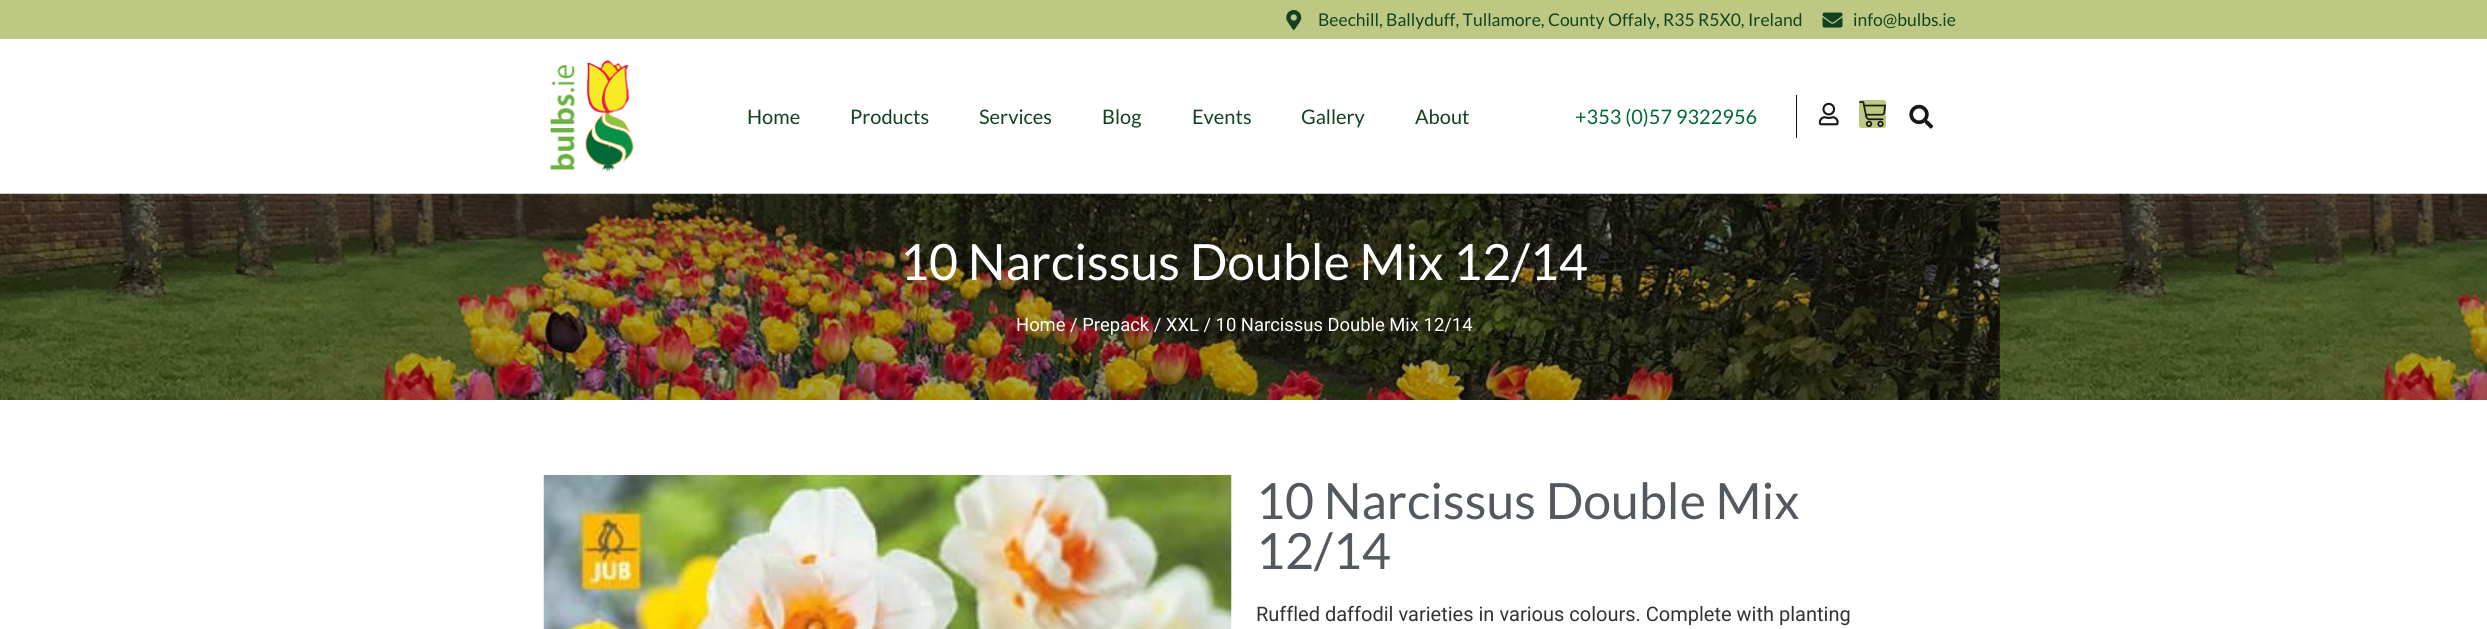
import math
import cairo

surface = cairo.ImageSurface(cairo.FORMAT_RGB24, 2487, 629)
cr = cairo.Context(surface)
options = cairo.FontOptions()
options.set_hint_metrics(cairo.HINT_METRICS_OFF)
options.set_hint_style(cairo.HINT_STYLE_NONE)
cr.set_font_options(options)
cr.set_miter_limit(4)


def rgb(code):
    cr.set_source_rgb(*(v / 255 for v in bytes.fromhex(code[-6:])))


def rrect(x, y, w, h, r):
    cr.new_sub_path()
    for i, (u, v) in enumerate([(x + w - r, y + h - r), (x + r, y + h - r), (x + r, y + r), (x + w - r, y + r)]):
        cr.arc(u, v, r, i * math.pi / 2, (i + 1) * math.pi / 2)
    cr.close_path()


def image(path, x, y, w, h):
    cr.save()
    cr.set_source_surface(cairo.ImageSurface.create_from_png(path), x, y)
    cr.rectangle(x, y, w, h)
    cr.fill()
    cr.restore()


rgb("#ffffff")
cr.paint()
rgb("#bdc982")
cr.rectangle(0, 0, 2487, 39)
cr.fill()
image("img/1.png", 1286, 10, 16, 20)
image("img/2.png", 1822, 12, 21, 16)
image("img/3.png", 550, 60, 84, 112)
rgb("#171718")
cr.rectangle(1796, 95, 1, 43)
cr.fill()
image("img/4.png", 1818, 102, 21, 24)
rgb("#bdc982")
rrect(1859, 100, 27, 28, 2.5)
cr.fill()
image("img/5.png", 1859, 101, 27, 26)
image("img/6.png", 1909, 104, 25, 25)
image("img/7.png", 0, 193, 2487, 207)
image("img/8.png", 543, 475, 689, 154)
cr.select_font_face("Lato")
cr.set_font_size(17.5)
rgb("#124222")
cr.move_to(1318, 26)
cr.show_text("Beechill, Ballyduff, Tullamore, County Offaly, R35 R5X0, Ireland")
cr.move_to(1853, 26)
cr.show_text("info@bulbs.ie")
cr.set_font_size(20)
for x, y, s in [
    (747, 124, "Home"),
    (850, 124, "Products"),
    (979, 124, "Services"),
    (1102, 124, "Blog"),
    (1192, 124, "Events"),
    (1301, 124, "Gallery"),
    (1415, 124, "About"),
]:
    cr.move_to(x, y)
    cr.show_text(s)
rgb("#006937")
cr.move_to(1575, 124)
cr.show_text("+353 (0)57 9322956")
cr.set_font_size(50)
rgb("#ffffff")
cr.move_to(900, 280)
cr.show_text("10 Narcissus Double Mix 12/14")
cr.select_font_face("Roboto")
cr.set_font_size(18.4)
cr.move_to(1016, 331)
cr.show_text("Home / Prepack / XXL / 10 Narcissus Double Mix 12/14")
cr.select_font_face("Lato")
cr.set_font_size(50)
rgb("#54595f")
cr.move_to(1256, 519)
cr.show_text("10 Narcissus Double Mix")
cr.move_to(1256, 569)
cr.show_text("12/14")
cr.select_font_face("Roboto")
cr.set_font_size(20)
rgb("#333333")
cr.move_to(1256, 621)
cr.show_text("Ruffled daffodil varieties in various colours. Complete with planting")
surface.write_to_png("page.png")
